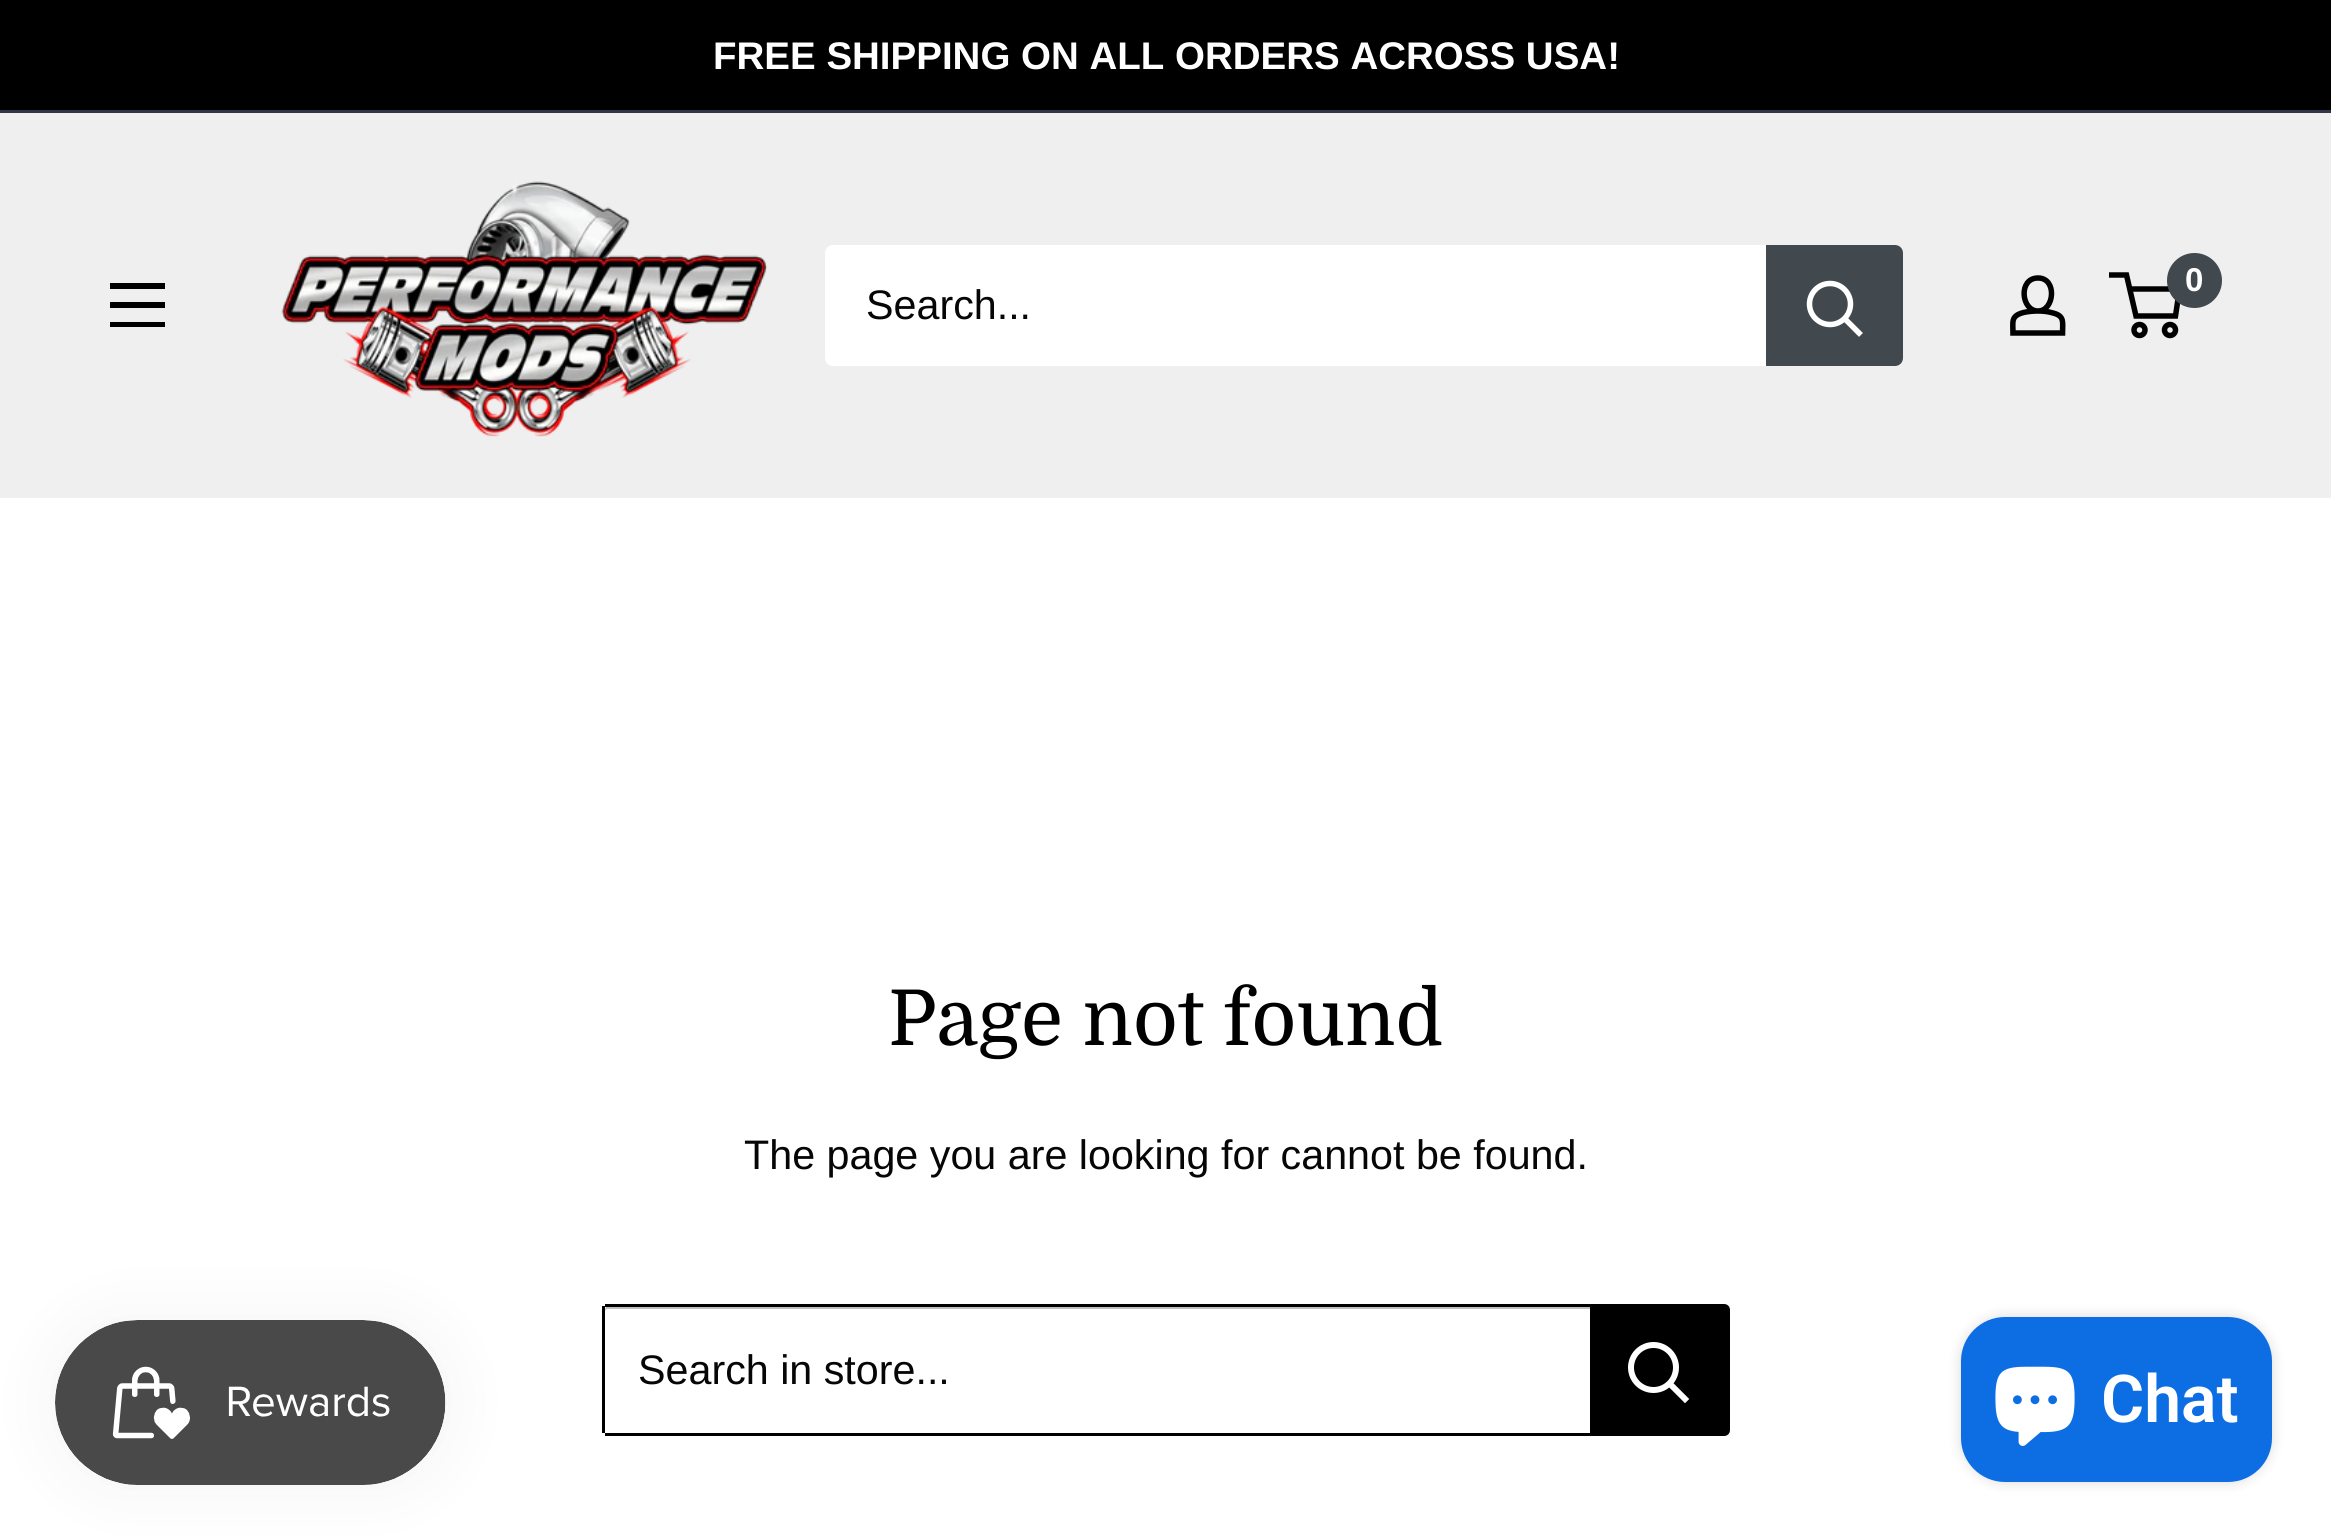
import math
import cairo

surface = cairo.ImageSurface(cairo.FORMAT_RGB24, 2331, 1538)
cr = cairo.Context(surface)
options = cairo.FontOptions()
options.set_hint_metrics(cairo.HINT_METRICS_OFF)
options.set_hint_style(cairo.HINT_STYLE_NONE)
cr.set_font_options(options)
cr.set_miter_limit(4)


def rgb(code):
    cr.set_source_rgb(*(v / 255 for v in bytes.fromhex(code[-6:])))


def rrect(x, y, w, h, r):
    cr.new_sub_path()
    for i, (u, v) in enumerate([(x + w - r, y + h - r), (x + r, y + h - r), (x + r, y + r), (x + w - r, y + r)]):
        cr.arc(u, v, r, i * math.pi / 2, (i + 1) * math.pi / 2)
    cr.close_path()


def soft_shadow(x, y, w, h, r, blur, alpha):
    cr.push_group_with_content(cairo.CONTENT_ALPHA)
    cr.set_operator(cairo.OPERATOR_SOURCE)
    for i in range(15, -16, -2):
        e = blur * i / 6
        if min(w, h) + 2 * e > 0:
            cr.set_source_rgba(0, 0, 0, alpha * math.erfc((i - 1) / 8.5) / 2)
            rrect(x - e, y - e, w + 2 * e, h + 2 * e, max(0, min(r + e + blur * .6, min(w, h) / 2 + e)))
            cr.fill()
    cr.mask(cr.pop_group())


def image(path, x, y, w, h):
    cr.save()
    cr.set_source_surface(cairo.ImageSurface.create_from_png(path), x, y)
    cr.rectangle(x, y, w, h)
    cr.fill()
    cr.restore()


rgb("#ffffff")
cr.paint()
for x, y, w, h, color in [
    (0, 0, 2331, 110, "#000000"),
    (0, 110, 2331, 3, "#313548"),
    (0, 113, 2331, 385, "#efefef"),
]:
    rgb(color)
    cr.rectangle(x, y, w, h)
    cr.fill()
image("img/1.png", 281, 181, 487, 256)
cr.new_path()
cr.move_to(2038, 311)
cr.curve_to(2043, 311, 2048, 311.5, 2053, 313)
cr.curve_to(2065, 316, 2062.5, 322.5, 2062.5, 333)
cr.line_to(2013, 333)
cr.curve_to(2013, 321.5, 2010.5, 316, 2023.5, 312.5)
cr.curve_to(2028, 311.5, 2033, 311, 2038, 311)
cr.close_path()
cr.move_to(2038, 311)
cr.curve_to(2021, 311, 2018, 278, 2038, 278)
cr.curve_to(2057.5, 278, 2054.5, 311, 2038, 311)
cr.close_path()
rgb("#000000")
cr.set_line_width(5.5)
cr.stroke()
cr.arc(2139.5, 330, 5.5, 0, 2 * math.pi)
cr.stroke()
cr.arc(2170, 330, 5.5, 0, 2 * math.pi)
cr.stroke()
cr.new_path()
cr.move_to(2129.5, 289)
cr.line_to(2179.5, 289)
cr.line_to(2175.5, 316)
cr.line_to(2136, 316)
cr.line_to(2126.5, 275)
cr.line_to(2109, 275)
cr.stroke()
rgb("#41494e")
cr.arc(2194.5, 280.5, 27.5, 0, 2 * math.pi)
cr.fill()
rgb("#000000")
cr.set_fill_rule(cairo.FILL_RULE_EVEN_ODD)
cr.new_path()
cr.move_to(110, 322)
cr.line_to(165, 322)
cr.line_to(165, 327)
cr.line_to(110, 327)
cr.close_path()
cr.move_to(110, 283)
cr.line_to(165, 283)
cr.line_to(165, 289)
cr.line_to(110, 289)
cr.close_path()
cr.move_to(110, 302)
cr.line_to(165, 302)
cr.line_to(165, 308)
cr.line_to(110, 308)
cr.close_path()
cr.fill()
rgb("#ffffff")
rrect(825, 245, 1078, 121, 8)
cr.fill()
rgb("#41494e")
cr.new_path()
cr.move_to(1766, 245)
cr.line_to(1895, 245)
cr.curve_to(1899.5, 245, 1903, 248.5, 1903, 253)
cr.line_to(1903, 358)
cr.curve_to(1903, 362.5, 1899.5, 366, 1895, 366)
cr.line_to(1766, 366)
cr.close_path()
cr.fill()
cr.new_path()
cr.move_to(1859, 333)
cr.line_to(1845, 319)
rgb("#ffffff")
cr.set_line_cap(cairo.LINE_CAP_SQUARE)
cr.stroke()
cr.arc(1830, 304, 20.5, 0, 2 * math.pi)
cr.set_line_cap(cairo.LINE_CAP_BUTT)
cr.stroke()
rgb("#000000")
soft_shadow(55, 1320, 391, 165, 82.5, 34.5, 0.05)
image("img/2.png", 55, 1320, 391, 165)
rgb("#bfbfbf")
cr.set_fill_rule(cairo.FILL_RULE_WINDING)
cr.new_path()
cr.move_to(608, 1309)
cr.line_to(1590, 1309)
cr.line_to(1590, 1306)
cr.line_to(608, 1306)
cr.curve_to(605, 1306, 605, 1310, 605, 1312)
cr.curve_to(605, 1310, 606, 1309, 608, 1309)
cr.close_path()
cr.fill()
for x, y, w, h, color in [
    (605, 1304, 985, 3, "#000000"),
    (605, 1433, 985, 3, "#000000"),
    (602, 1306, 3, 127, "#000000"),
]:
    rgb(color)
    cr.rectangle(x, y, w, h)
    cr.fill()
cr.new_path()
cr.move_to(1590, 1304)
cr.line_to(1724, 1304)
cr.curve_to(1727.5, 1304, 1730, 1306.5, 1730, 1310)
cr.line_to(1730, 1430)
cr.curve_to(1730, 1433.5, 1727.5, 1436, 1724, 1436)
cr.line_to(1590, 1436)
cr.close_path()
cr.fill()
cr.new_path()
cr.move_to(1685, 1399)
cr.line_to(1670, 1384)
rgb("#ffffff")
cr.set_line_width(6)
cr.set_line_cap(cairo.LINE_CAP_SQUARE)
cr.stroke()
cr.arc(1653.5, 1367.5, 22.5, 0, 2 * math.pi)
cr.set_line_cap(cairo.LINE_CAP_BUTT)
cr.stroke()
rgb("#000000")
soft_shadow(1961, 1317, 311, 165, 44, 7, 0.15)
rgb("#0d6ee4")
rrect(1961, 1317, 311, 165, 44)
cr.fill()
image("img/3.png", 1995, 1366, 80, 80)
cr.select_font_face("Liberation Sans", cairo.FONT_SLANT_NORMAL, cairo.FONT_WEIGHT_BOLD)
cr.set_font_size(38.5)
rgb("#ffffff")
cr.move_to(713, 69)
cr.show_text("FREE SHIPPING ON ALL ORDERS ACROSS USA!")
cr.set_font_size(33)
cr.move_to(2185, 291)
cr.show_text("0")
cr.select_font_face("Liberation Sans")
cr.set_font_size(41.25)
rgb("#060606")
cr.move_to(866, 319)
cr.show_text("Search...")
cr.select_font_face("Domine")
cr.set_font_size(77)
rgb("#000000")
cr.move_to(888, 1045)
cr.show_text("Page not found")
cr.select_font_face("Liberation Sans")
cr.set_font_size(41.25)
rgb("#060606")
cr.move_to(744, 1169)
cr.show_text("The page you are looking for cannot be found.")
cr.move_to(638, 1384)
cr.show_text("Search in store...")
cr.select_font_face("Roboto SemiBold")
cr.set_font_size(66)
rgb("#ffffff")
cr.move_to(2101, 1422)
cr.show_text("Chat")
surface.write_to_png("page.png")
